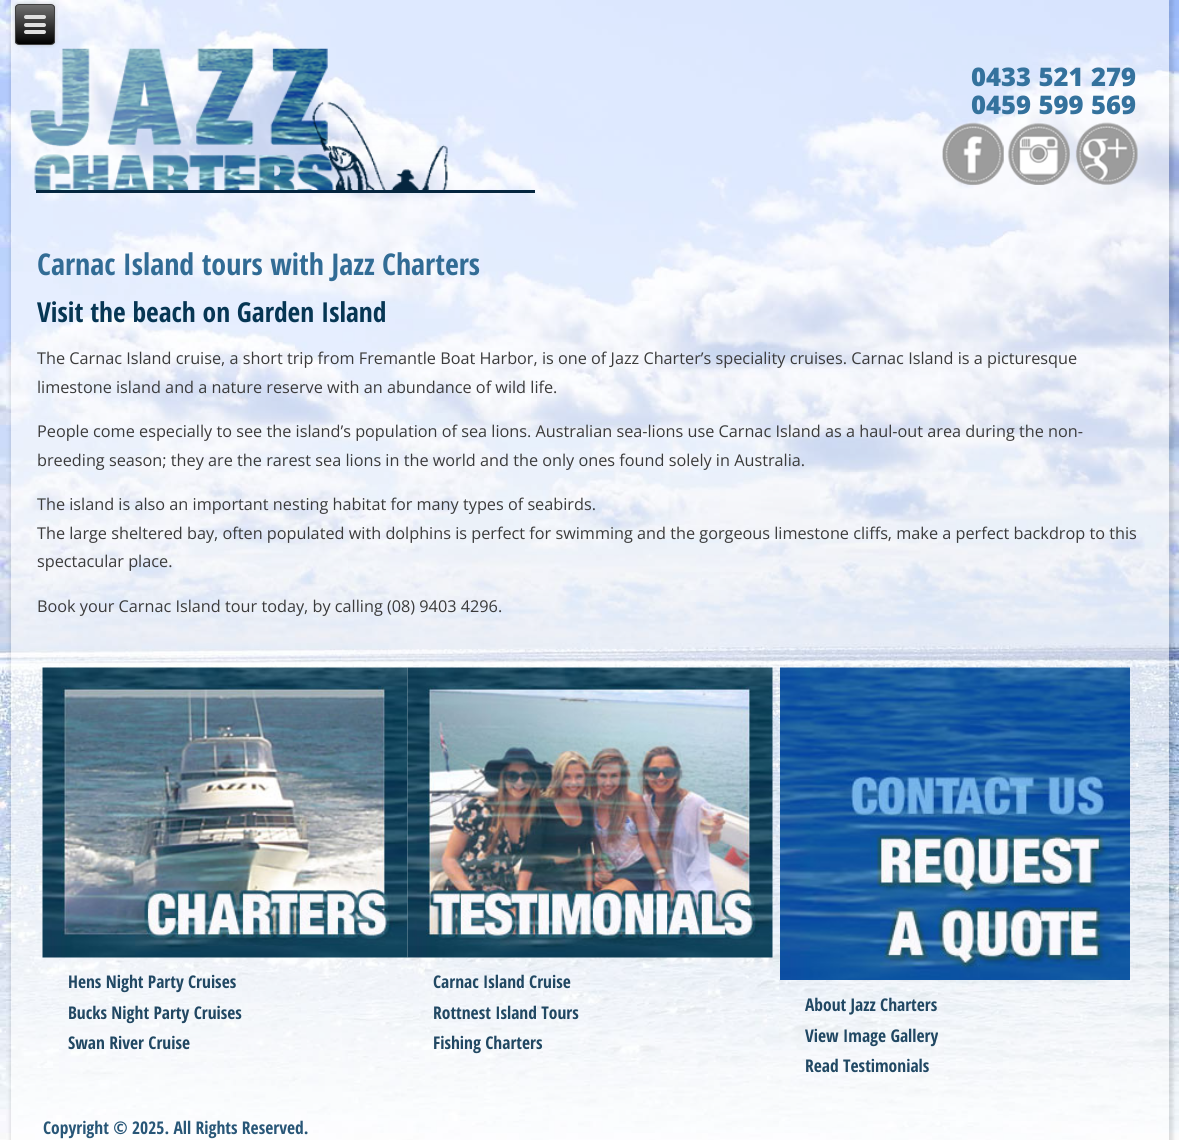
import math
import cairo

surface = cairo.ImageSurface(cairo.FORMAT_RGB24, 1179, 1140)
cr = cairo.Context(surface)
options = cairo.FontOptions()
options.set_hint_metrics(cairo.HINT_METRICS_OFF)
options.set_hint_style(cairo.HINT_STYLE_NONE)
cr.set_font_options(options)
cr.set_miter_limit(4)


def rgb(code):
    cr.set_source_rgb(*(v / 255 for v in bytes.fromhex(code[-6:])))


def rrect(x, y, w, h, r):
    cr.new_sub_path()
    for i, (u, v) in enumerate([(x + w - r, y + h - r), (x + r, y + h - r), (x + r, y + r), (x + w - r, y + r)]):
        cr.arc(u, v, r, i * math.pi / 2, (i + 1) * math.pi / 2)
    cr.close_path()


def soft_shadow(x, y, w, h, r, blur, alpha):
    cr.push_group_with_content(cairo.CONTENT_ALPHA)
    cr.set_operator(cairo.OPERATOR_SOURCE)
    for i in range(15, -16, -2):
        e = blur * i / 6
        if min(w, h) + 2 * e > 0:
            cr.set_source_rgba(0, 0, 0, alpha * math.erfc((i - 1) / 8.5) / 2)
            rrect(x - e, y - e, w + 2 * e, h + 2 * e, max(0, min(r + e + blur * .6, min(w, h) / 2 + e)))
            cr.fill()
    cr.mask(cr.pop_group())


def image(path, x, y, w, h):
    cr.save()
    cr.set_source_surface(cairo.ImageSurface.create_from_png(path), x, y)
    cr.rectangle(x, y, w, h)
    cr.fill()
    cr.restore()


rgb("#ffffff")
cr.paint()
image("img/1.png", 0, 0, 1179, 1140)
cr.save()
cr.set_fill_rule(cairo.FILL_RULE_EVEN_ODD)
cr.new_path()
cr.move_to(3, 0)
cr.line_to(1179, 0)
cr.line_to(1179, 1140)
cr.line_to(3, 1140)
cr.close_path()
cr.move_to(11, 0)
cr.line_to(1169, 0)
cr.line_to(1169, 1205)
cr.line_to(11, 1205)
cr.close_path()
cr.clip()
rgb("#000000")
soft_shadow(10, -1, 1163, 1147, 0, 2, 0.12)
cr.restore()
cr.set_source_rgba(1, 1, 1, 0.6)
cr.rectangle(11, 0, 1158, 1140)
cr.fill()
image("img/2.png", 29, 48, 419, 142)
rgb("#000000")
soft_shadow(15, 4, 40, 41, 4, 2, 0.2)
cr.save()
rrect(15, 4, 40, 41, 4)
cr.clip()
gradient = cairo.LinearGradient(35, 5, 35, 44)
gradient.add_color_stop_rgba(0, 0.439, 0.439, 0.439, 1)
gradient.add_color_stop_rgba(1, 0, 0, 0, 1)
cr.set_source(gradient)
cr.rectangle(15, 5, 40, 39)
cr.fill()
cr.restore()
rrect(15.5, 4.5, 39, 40, 3.5)
rgb("#404040")
cr.set_line_width(1)
cr.stroke()
rgb("#e0e0e0")
rrect(24, 15, 22, 4, 2)
cr.fill()
rrect(24, 23, 22, 4, 2)
cr.fill()
rrect(24, 30, 22, 4, 2)
cr.fill()
image("img/3.png", 942, 122, 62, 63)
image("img/4.png", 1007, 123, 63, 62)
image("img/5.png", 1075, 122, 63, 63)
rgb("#05263f")
cr.rectangle(36, 190, 499, 3)
cr.fill()
image("img/6.png", 42, 667, 366, 291)
image("img/7.png", 407, 667, 366, 291)
image("img/8.png", 780, 667, 350, 313)
cr.select_font_face("Khula ExtraBold")
cr.set_font_size(27.5)
rgb("#34729d")
cr.move_to(971, 86)
cr.show_text("0433 521 279")
cr.move_to(971, 114)
cr.show_text("0459 599 569")
cr.select_font_face("Open Sans Condensed", cairo.FONT_SLANT_NORMAL, cairo.FONT_WEIGHT_BOLD)
cr.set_font_size(30)
rgb("#326c95")
cr.move_to(37, 275)
cr.show_text("Carnac Island tours with Jazz Charters")
cr.set_font_size(27.5)
rgb("#063654")
cr.move_to(37, 322)
cr.show_text("Visit the beach on Garden Island")
cr.select_font_face("Open Sans")
cr.set_font_size(16.25)
rgb("#3b3b3b")
for x, y, s in [
    (37, 364, "The Carnac Island cruise, a short trip from Fremantle Boat Harbor, is one of Jazz Charter’s speciality cruises. Carnac Island is a picturesque"),
    (37, 393, "limestone island and a nature reserve with an abundance of wild life."),
    (37, 437, "People come especially to see the island’s population of sea lions. Australian sea-lions use Carnac Island as a haul-out area during the non-"),
    (37, 466, "breeding season; they are the rarest sea lions in the world and the only ones found solely in Australia."),
    (37, 510, "The island is also an important nesting habitat for many types of seabirds."),
    (37, 539, "The large sheltered bay, often populated with dolphins is perfect for swimming and the gorgeous limestone cliffs, make a perfect backdrop to this"),
    (37, 567, "spectacular place."),
    (37, 612, "Book your Carnac Island tour today, by calling (08) 9403 4296."),
]:
    cr.move_to(x, y)
    cr.show_text(s)
cr.select_font_face("Open Sans Condensed", cairo.FONT_SLANT_NORMAL, cairo.FONT_WEIGHT_BOLD)
cr.set_font_size(17.5)
rgb("#214863")
for x, y, s in [
    (68, 988, "Hens Night Party Cruises"),
    (68, 1019, "Bucks Night Party Cruises"),
    (68, 1049, "Swan River Cruise"),
    (433, 988, "Carnac Island Cruise"),
    (433, 1019, "Rottnest Island Tours"),
    (433, 1049, "Fishing Charters"),
    (805, 1011, "About Jazz Charters"),
    (805, 1042, "View Image Gallery"),
    (805, 1072, "Read Testimonials"),
]:
    cr.move_to(x, y)
    cr.show_text(s)
rgb("#285677")
cr.move_to(43, 1134)
cr.show_text("Copyright © 2025. All Rights Reserved.")
surface.write_to_png("page.png")
